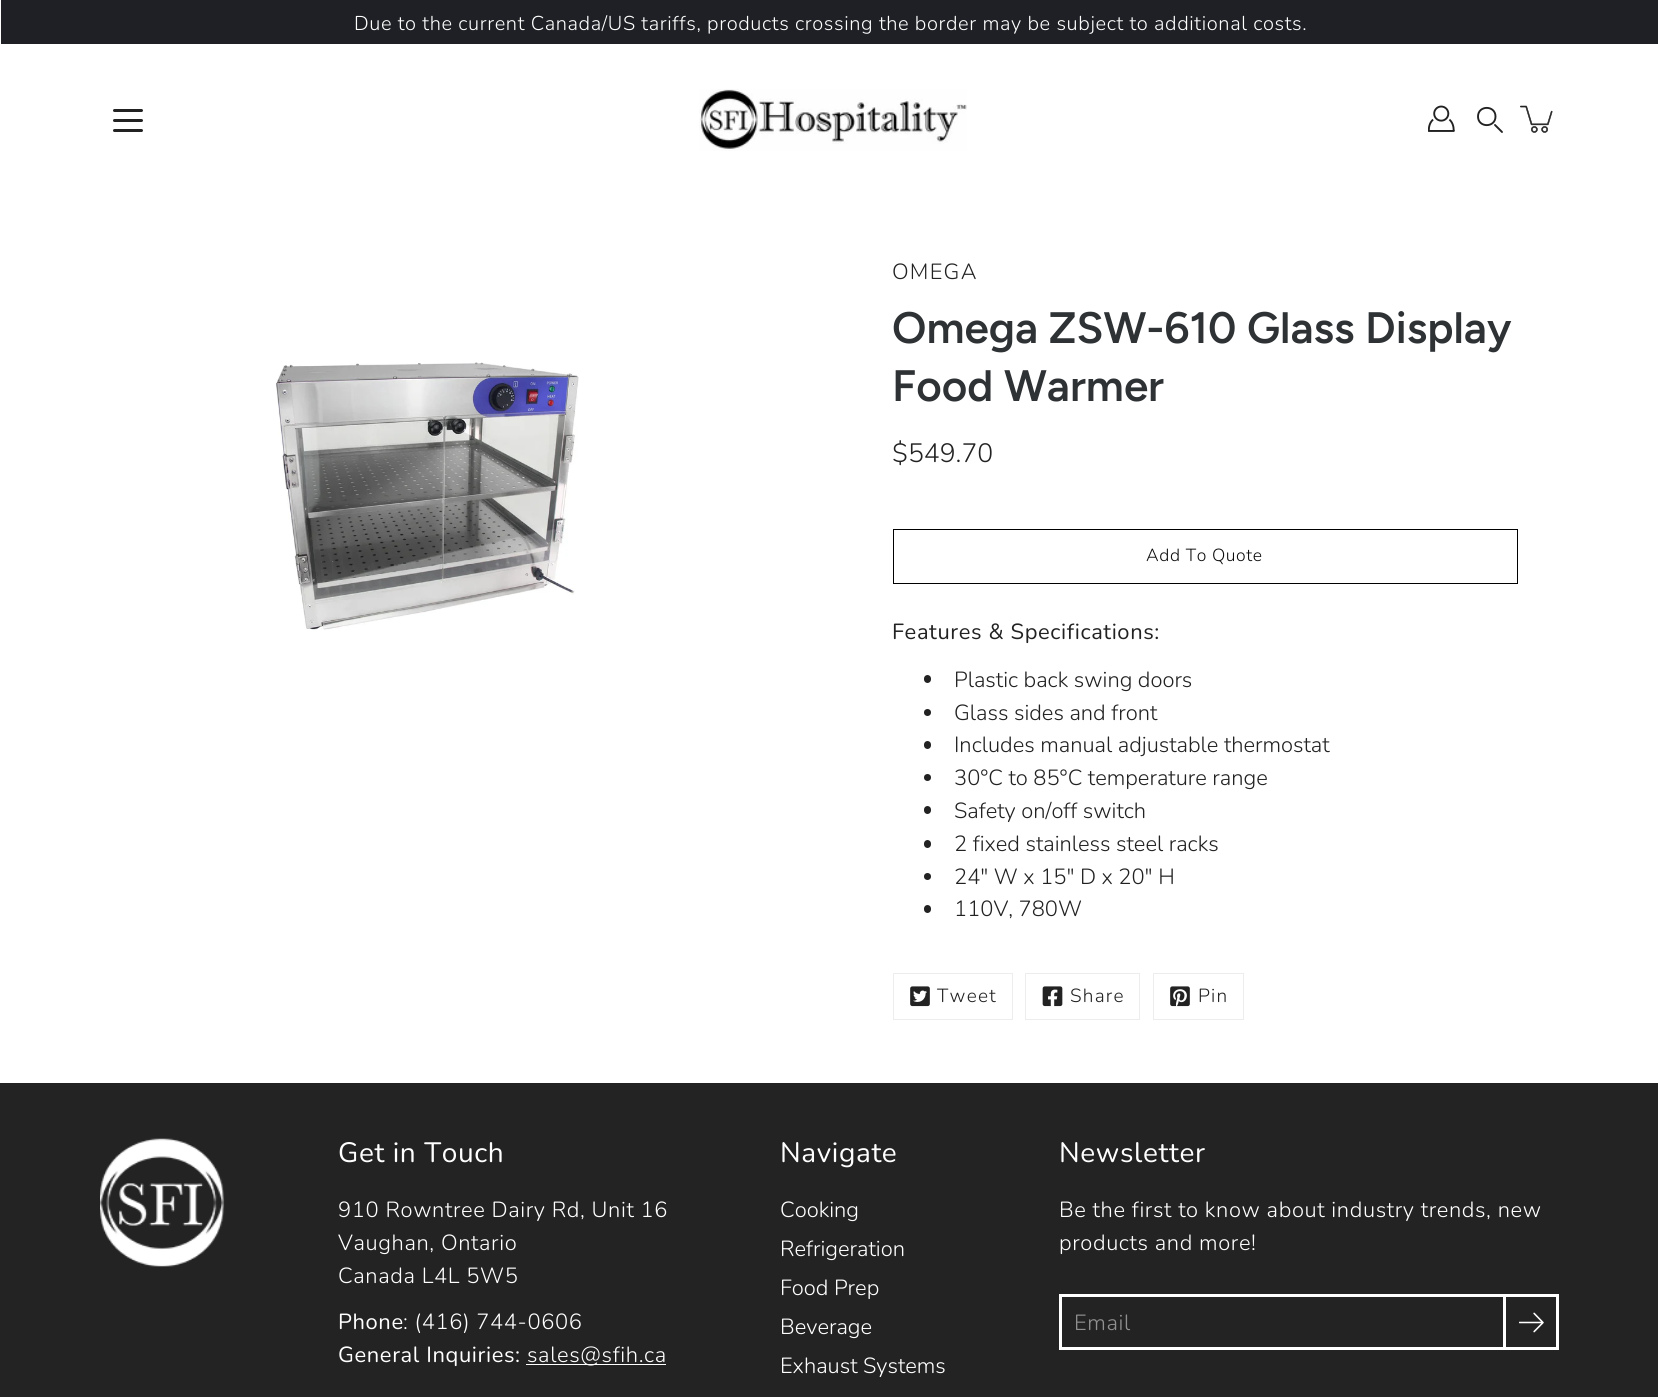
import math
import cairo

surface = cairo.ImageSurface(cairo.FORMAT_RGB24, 1658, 1397)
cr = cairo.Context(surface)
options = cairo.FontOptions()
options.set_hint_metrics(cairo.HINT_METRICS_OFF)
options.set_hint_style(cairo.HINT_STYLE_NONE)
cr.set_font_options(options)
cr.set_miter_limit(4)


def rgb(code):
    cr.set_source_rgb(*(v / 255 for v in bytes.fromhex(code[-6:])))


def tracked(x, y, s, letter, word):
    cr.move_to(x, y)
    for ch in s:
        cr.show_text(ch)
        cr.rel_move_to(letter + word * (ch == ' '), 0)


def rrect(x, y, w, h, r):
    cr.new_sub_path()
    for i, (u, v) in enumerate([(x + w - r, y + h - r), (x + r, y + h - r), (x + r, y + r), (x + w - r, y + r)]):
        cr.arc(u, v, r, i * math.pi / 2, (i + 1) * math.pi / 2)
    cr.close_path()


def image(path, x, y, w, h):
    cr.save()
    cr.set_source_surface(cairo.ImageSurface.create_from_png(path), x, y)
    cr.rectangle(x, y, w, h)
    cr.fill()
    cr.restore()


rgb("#ffffff")
cr.paint()
rgb("#1e2025")
cr.rectangle(1, 0, 1657, 44)
cr.fill()
image("img/1.png", 699, 89, 268, 62)
rgb("#222222")
rrect(113, 119, 30, 3, 1.5)
cr.fill()
rrect(113, 109, 30, 3, 1.5)
cr.fill()
rrect(113, 129, 30, 3, 1.5)
cr.fill()
image("img/2.png", 1428, 105, 27, 27)
cr.new_path()
cr.move_to(1495.5, 116.5)
cr.curve_to(1495.5, 128, 1478, 128, 1478, 116.5)
cr.curve_to(1478, 105, 1495.5, 105, 1495.5, 116.5)
cr.close_path()
cr.set_line_width(1.9)
cr.stroke()
cr.new_path()
cr.move_to(1495, 125)
cr.line_to(1502, 132)
cr.set_line_cap(cairo.LINE_CAP_ROUND)
cr.stroke()
image("img/3.png", 1520, 105, 33, 28)
image("img/4.png", 276, 362, 303, 268)
cr.rectangle(893.5, 529.5, 624, 54)
rgb("#000000")
cr.set_line_width(1)
cr.set_line_cap(cairo.LINE_CAP_BUTT)
cr.stroke()
rgb("#222222")
rrect(924, 675, 7, 8, 3.5)
cr.fill()
cr.arc(927.5, 712.5, 3.5, 0, 2 * math.pi)
cr.fill()
rrect(924, 741, 7, 8, 3.5)
cr.fill()
cr.arc(927.5, 777.5, 3.5, 0, 2 * math.pi)
cr.fill()
rrect(924, 806, 7, 8, 3.5)
cr.fill()
rrect(924, 840, 7, 8, 3.5)
cr.fill()
cr.arc(927.5, 876.5, 3.5, 0, 2 * math.pi)
cr.fill()
rrect(924, 905, 7, 8, 3.5)
cr.fill()
cr.rectangle(893.5, 973.5, 119, 46)
rgb("#ededed")
cr.stroke()
image("img/5.png", 910, 986, 20, 21)
cr.rectangle(1025.5, 973.5, 114, 46)
cr.stroke()
image("img/6.png", 1042, 986, 21, 21)
cr.rectangle(1153.5, 973.5, 90, 46)
cr.stroke()
image("img/7.png", 1170, 986, 20, 21)
rgb("#232323")
cr.rectangle(0, 1083, 1658, 314)
cr.fill()
image("img/8.png", 100, 1138, 125, 129)
rgb("#ffffff")
cr.rectangle(526, 1364, 140, 1)
cr.fill()
cr.rectangle(1060.5, 1295.5, 497, 53)
cr.set_line_width(3)
cr.stroke()
cr.rectangle(1504.5, 1295.5, 53, 53)
cr.stroke()
image("img/9.png", 1519, 1312, 25, 21)
cr.select_font_face("Nunito Light")
cr.set_font_size(20)
tracked(354, 30, "Due to the current Canada/US tariffs, products crossing the border may be subject to additional costs.", 0.62, 0)
cr.set_font_size(21.9)
rgb("#222222")
tracked(892, 279, "OMEGA", 1.25, 0)
cr.select_font_face("Figtree SemiBold")
cr.set_font_size(44)
rgb("#2e3234")
cr.move_to(892, 343)
cr.show_text("Omega ZSW-610 Glass Display")
cr.move_to(892, 401)
cr.show_text("Food Warmer")
cr.select_font_face("Nunito Light")
cr.set_font_size(26.5)
rgb("#222222")
cr.move_to(892, 462)
cr.show_text("$549.70")
cr.set_font_size(17.5)
rgb("#0d0d0d")
tracked(1146, 561, "Add To Quote", 0.62, 0)
cr.select_font_face("Nunito")
cr.set_font_size(21.9)
rgb("#222222")
tracked(892, 639, "Features & Specifications:", 0.62, 0)
cr.select_font_face("Nunito Light")
for x, y, s in [
    (954, 687, "Plastic back swing doors"),
    (954, 720, "Glass sides and front"),
    (954, 752, "Includes manual adjustable thermostat"),
    (954, 785, "30°C to 85°C temperature range"),
    (954, 818, "Safety on/off switch"),
    (954, 851, "2 fixed stainless steel racks"),
    (954, 884, "24\" W x 15\" D x 20\" H"),
    (954, 916, "110V, 780W"),
]:
    cr.move_to(x, y)
    cr.show_text(s)
cr.set_font_size(19)
for x, y, s in [
    (937, 1002, "Tweet"),
    (1070, 1002, "Share"),
    (1198, 1002, "Pin"),
]:
    tracked(x, y, s, 1.25, 0)
cr.select_font_face("Nunito")
cr.set_font_size(28)
rgb("#ffffff")
tracked(338, 1162, "Get in Touch", 0.62, 0)
cr.select_font_face("Nunito Light")
cr.set_font_size(21.9)
for x, y, s in [
    (338, 1217, "910 Rowntree Dairy Rd, Unit 16"),
    (338, 1250, "Vaughan, Ontario"),
    (338, 1283, "Canada L4L 5W5"),
]:
    tracked(x, y, s, 0.62, 0)
cr.select_font_face("Nunito")
tracked(338, 1329, "Phone", 0.62, 0)
cr.select_font_face("Nunito Light")
tracked(403, 1329, ": (416) 744-0606", 0.62, 0)
cr.select_font_face("Nunito")
tracked(338, 1362, "General Inquiries:", 0.62, 0)
cr.select_font_face("Nunito Light")
tracked(527, 1362, "sales@sfih.ca", 0.62, 0)
cr.select_font_face("Nunito")
cr.set_font_size(28)
tracked(780, 1162, "Navigate", 0.62, 0)
cr.select_font_face("Nunito Light")
cr.set_font_size(21.9)
for x, y, s in [
    (780, 1217, "Cooking"),
    (780, 1256, "Refrigeration"),
    (780, 1295, "Food Prep"),
    (780, 1334, "Beverage"),
    (780, 1373, "Exhaust Systems"),
]:
    cr.move_to(x, y)
    cr.show_text(s)
cr.select_font_face("Nunito")
cr.set_font_size(28)
tracked(1059, 1162, "Newsletter", 0.62, 0)
cr.select_font_face("Nunito Light")
cr.set_font_size(21.9)
tracked(1059, 1217, "Be the first to know about industry trends, new", 0.62, 0)
tracked(1059, 1250, "products and more!", 0.62, 0)
rgb("#919191")
tracked(1074, 1330, "Email", 0.62, 0)
surface.write_to_png("page.png")
